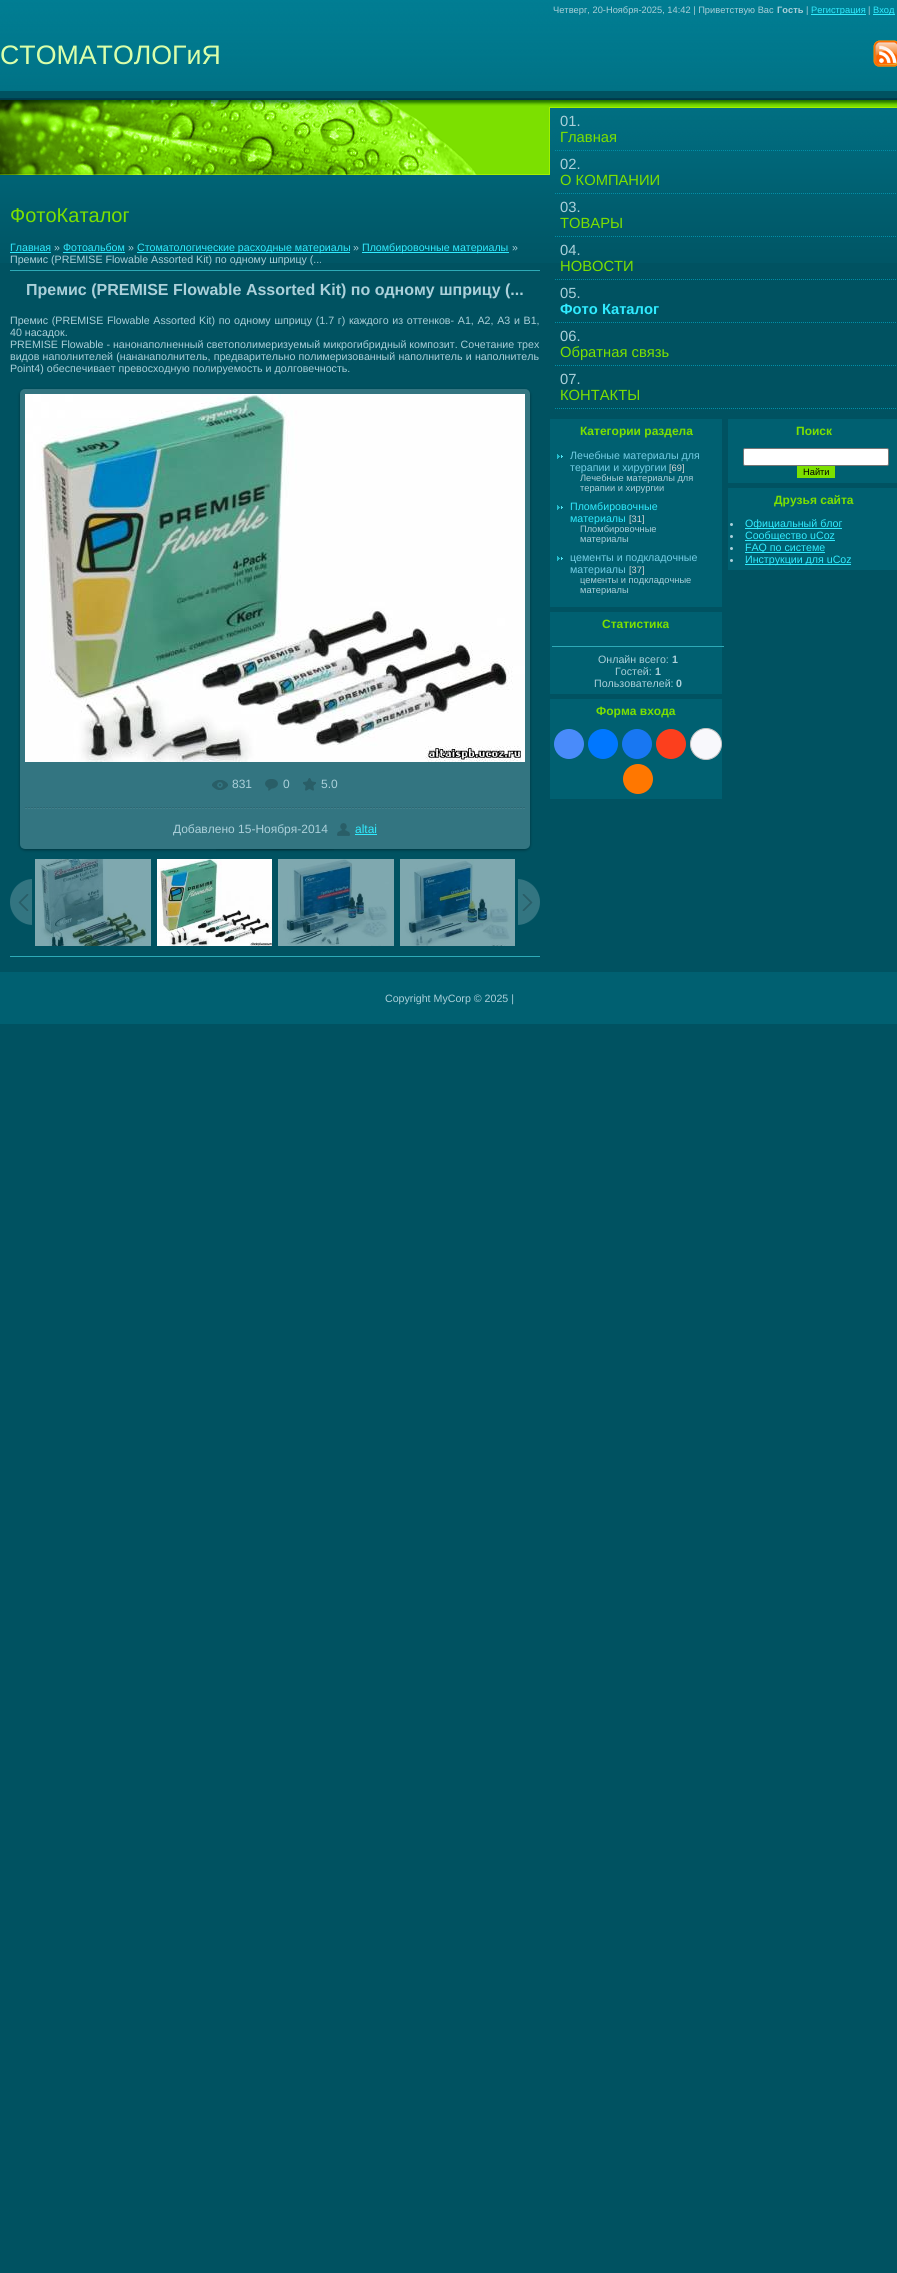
import math
import cairo

surface = cairo.ImageSurface(cairo.FORMAT_RGB24, 897, 2273)
cr = cairo.Context(surface)
options = cairo.FontOptions()
options.set_hint_metrics(cairo.HINT_METRICS_OFF)
options.set_hint_style(cairo.HINT_STYLE_NONE)
cr.set_font_options(options)
cr.set_miter_limit(4)


def rgb(code):
    cr.set_source_rgb(*(v / 255 for v in bytes.fromhex(code[-6:])))


def tracked(x, y, s, letter, word):
    cr.move_to(x, y)
    for ch in s:
        cr.show_text(ch)
        cr.rel_move_to(letter + word * (ch == ' '), 0)


def rrect(x, y, w, h, r):
    cr.new_sub_path()
    for i, (u, v) in enumerate([(x + w - r, y + h - r), (x + r, y + h - r), (x + r, y + r), (x + w - r, y + r)]):
        cr.arc(u, v, r, i * math.pi / 2, (i + 1) * math.pi / 2)
    cr.close_path()


def soft_shadow(x, y, w, h, r, blur, alpha):
    cr.push_group_with_content(cairo.CONTENT_ALPHA)
    cr.set_operator(cairo.OPERATOR_SOURCE)
    for i in range(15, -16, -2):
        e = blur * i / 6
        if min(w, h) + 2 * e > 0:
            cr.set_source_rgba(0, 0, 0, alpha * math.erfc((i - 1) / 8.5) / 2)
            rrect(x - e, y - e, w + 2 * e, h + 2 * e, max(0, min(r + e + blur * .6, min(w, h) / 2 + e)))
            cr.fill()
    cr.mask(cr.pop_group())


def image(path, x, y, w, h):
    cr.save()
    cr.set_source_surface(cairo.ImageSurface.create_from_png(path), x, y)
    cr.rectangle(x, y, w, h)
    cr.fill()
    cr.restore()


rgb("#005261")
cr.paint()
image("img/1.png", 0, 0, 897, 263)
rgb("#30ebff")
cr.rectangle(811, 14, 55, 1)
cr.fill()
cr.rectangle(873, 14, 22, 1)
cr.fill()
image("img/2.png", 873, 40, 24, 27)
image("img/3.png", 0, 91, 897, 84)
for x, y, w, h, color in [
    (10, 252, 41, 1, "#30ebff"),
    (63, 252, 62, 1, "#30ebff"),
    (137, 252, 213, 1, "#30ebff"),
    (362, 252, 147, 1, "#30ebff"),
    (10, 270, 530, 1, "#2daab7"),
]:
    rgb(color)
    cr.rectangle(x, y, w, h)
    cr.fill()
cr.save()
cr.set_fill_rule(cairo.FILL_RULE_EVEN_ODD)
cr.new_path()
cr.move_to(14, 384)
cr.line_to(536, 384)
cr.line_to(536, 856)
cr.line_to(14, 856)
cr.close_path()
cr.move_to(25, 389)
cr.line_to(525, 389)
cr.curve_to(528, 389, 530, 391, 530, 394)
cr.line_to(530, 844)
cr.curve_to(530, 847, 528, 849, 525, 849)
cr.line_to(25, 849)
cr.curve_to(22, 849, 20, 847, 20, 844)
cr.line_to(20, 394)
cr.curve_to(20, 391, 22, 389, 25, 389)
cr.close_path()
cr.clip()
rgb("#000000")
soft_shadow(20, 390, 510, 460, 5, 1.5, 0.37)
cr.restore()
image("img/4.png", 20, 389, 510, 460)
image("img/5.png", 25, 394, 500, 368)
image("img/6.png", 212, 780, 16, 10)
image("img/7.png", 265, 779, 13, 12)
image("img/8.png", 303, 778, 13, 13)
image("img/9.png", 25, 807, 500, 2)
image("img/10.png", 337, 823, 13, 13)
rgb("#30ebff")
cr.rectangle(355, 834, 22, 1)
cr.fill()
image("img/11.png", 216, 849, 118, 2)
image("img/12.png", 10, 879, 22, 46)
image("img/13.png", 35, 859, 116, 87)
image("img/14.png", 157, 859, 115, 87)
image("img/15.png", 278, 859, 116, 87)
image("img/16.png", 400, 859, 115, 87)
image("img/17.png", 518, 879, 22, 46)
rgb("#2daab7")
cr.rectangle(10, 956, 530, 1)
cr.fill()
cr.new_path()
cr.move_to(555, 150.5)
cr.line_to(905, 150.5)
rgb("#018fa8")
cr.set_line_width(1)
cr.set_dash([1, 1])
cr.stroke()
cr.new_path()
cr.move_to(555, 193.5)
cr.line_to(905, 193.5)
cr.stroke()
cr.new_path()
cr.move_to(555, 236.5)
cr.line_to(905, 236.5)
cr.stroke()
cr.new_path()
cr.move_to(555, 279.5)
cr.line_to(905, 279.5)
cr.stroke()
cr.new_path()
cr.move_to(555, 322.5)
cr.line_to(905, 322.5)
cr.stroke()
cr.new_path()
cr.move_to(555, 365.5)
cr.line_to(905, 365.5)
cr.stroke()
cr.new_path()
cr.move_to(555, 408.5)
cr.line_to(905, 408.5)
cr.stroke()
rgb("#006071")
cr.rectangle(550, 419, 172, 188)
cr.fill()
image("img/18.png", 557, 454, 6, 5)
image("img/18.png", 557, 505, 6, 5)
image("img/18.png", 557, 556, 6, 5)
for x, y, w, h, color in [
    (550, 612, 172, 82, "#006071"),
    (552, 646, 172, 1, "#2daab7"),
    (550, 699, 172, 100, "#006071"),
]:
    rgb(color)
    cr.rectangle(x, y, w, h)
    cr.fill()
rgb("#498bfa")
cr.arc(569, 744, 15, 0, 2 * math.pi)
cr.fill()
rgb("#0077ff")
cr.arc(603, 744, 15, 0, 2 * math.pi)
cr.fill()
rgb("#1877f2")
cr.arc(637, 744, 15, 0, 2 * math.pi)
cr.fill()
rgb("#fc3f1d")
cr.arc(671, 744, 15, 0, 2 * math.pi)
cr.fill()
rgb("#f8f8fc")
cr.arc(706, 744, 15.5, 0, 2 * math.pi)
cr.fill_preserve()
rgb("#c4c4c4")
cr.set_dash([])
cr.stroke()
rgb("#ff7700")
cr.arc(638, 779, 15, 0, 2 * math.pi)
cr.fill()
rgb("#006071")
cr.rectangle(728, 419, 169, 64)
cr.fill()
rgb("#ffffff")
rrect(743.5, 448.5, 145, 17, 1.5)
cr.fill_preserve()
rgb("#767676")
cr.stroke()
rgb("#7ce000")
cr.rectangle(797, 466, 38, 12)
cr.fill()
rgb("#006071")
cr.rectangle(728, 488, 169, 82)
cr.fill()
rgb("#abd0da")
cr.arc(731.5, 524.5, 1.5, 0, 2 * math.pi)
cr.fill()
rgb("#30ebff")
cr.rectangle(745, 528, 97, 1)
cr.fill()
rgb("#abd0da")
cr.arc(731.5, 536.5, 1.5, 0, 2 * math.pi)
cr.fill()
rgb("#30ebff")
cr.rectangle(745, 540, 90, 1)
cr.fill()
rgb("#abd0da")
cr.arc(731.5, 548.5, 1.5, 0, 2 * math.pi)
cr.fill()
rgb("#30ebff")
cr.rectangle(745, 552, 80, 1)
cr.fill()
rgb("#abd0da")
cr.arc(731.5, 560.5, 1.5, 0, 2 * math.pi)
cr.fill()
rgb("#30ebff")
cr.rectangle(745, 564, 106, 1)
cr.fill()
rgb("#006071")
cr.rectangle(0, 972, 897, 52)
cr.fill()
cr.select_font_face("Liberation Sans")
cr.set_font_size(9.3)
rgb("#abd0da")
cr.move_to(553, 13)
cr.show_text("Четверг, 20-Ноября-2025, 14:42 | Приветствую Вас")
cr.select_font_face("Liberation Sans", cairo.FONT_SLANT_NORMAL, cairo.FONT_WEIGHT_BOLD)
cr.move_to(777, 13)
cr.show_text("Гость")
cr.select_font_face("Liberation Sans")
cr.move_to(806, 13)
cr.show_text("|")
rgb("#30ebff")
cr.move_to(811, 13)
cr.show_text("Регистрация")
rgb("#abd0da")
cr.move_to(868, 13)
cr.show_text("|")
rgb("#30ebff")
cr.move_to(873, 13)
cr.show_text("Вход")
cr.set_font_size(26.75)
rgb("#daffaa")
cr.move_to(0, 64)
cr.show_text("СТОМАТОЛОГиЯ")
cr.set_font_size(20)
rgb("#7ce000")
cr.move_to(10, 222)
cr.show_text("ФотоКаталог")
cr.set_font_size(10.65)
rgb("#30ebff")
cr.move_to(10, 251)
cr.show_text("Главная")
rgb("#abd0da")
cr.move_to(54, 251)
cr.show_text("»")
rgb("#30ebff")
cr.move_to(63, 251)
cr.show_text("Фотоальбом")
rgb("#abd0da")
cr.move_to(128, 251)
cr.show_text("»")
rgb("#30ebff")
cr.move_to(137, 251)
cr.show_text("Стоматологические расходные материалы")
rgb("#abd0da")
cr.move_to(353, 251)
cr.show_text("»")
rgb("#30ebff")
cr.move_to(362, 251)
cr.show_text("Пломбировочные материалы")
rgb("#abd0da")
cr.move_to(512, 251)
cr.show_text("»")
cr.move_to(10, 263)
cr.show_text("Премис (PREMISE Flowable Assorted Kit) по одному шприцу (...")
cr.select_font_face("Liberation Sans", cairo.FONT_SLANT_NORMAL, cairo.FONT_WEIGHT_BOLD)
cr.set_font_size(16)
cr.move_to(26, 295)
cr.show_text("Премис (PREMISE Flowable Assorted Kit) по одному шприцу (...")
cr.select_font_face("Liberation Sans")
cr.set_font_size(10.65)
tracked(10, 324, "Премис (PREMISE Flowable Assorted Kit) по одному шприцу (1.7 г) каждого из оттенков- A1, A2, A3 и B1,", 0, 0.75)
cr.move_to(10, 336)
cr.show_text("40 насадок.")
cr.move_to(10, 348)
cr.show_text("PREMISE Flowable - нанонаполненный светополимеризуемый микрогибридный композит. Сочетание трех")
tracked(10, 360, "видов наполнителей (нананаполнитель, предварительно полимеризованный наполнитель и наполнитель", 0, 0.25)
cr.move_to(10, 372)
cr.show_text("Point4) обеспечивает превосходную полируемость и долговечность.")
cr.set_font_size(12)
for x, y, s in [
    (232, 788, "831"),
    (283, 788, "0"),
    (321, 788, "5.0"),
    (173, 833, "Добавлено 15-Ноября-2014"),
]:
    cr.move_to(x, y)
    cr.show_text(s)
rgb("#30ebff")
cr.move_to(355, 833)
cr.show_text("altai")
cr.set_font_size(14.75)
rgb("#abd0da")
cr.move_to(560, 126)
cr.show_text("01.")
rgb("#7ce000")
cr.move_to(560, 142)
cr.show_text("Главная")
rgb("#abd0da")
cr.move_to(560, 169)
cr.show_text("02.")
rgb("#7ce000")
cr.move_to(560, 185)
cr.show_text("О КОМПАНИИ")
rgb("#abd0da")
cr.move_to(560, 212)
cr.show_text("03.")
rgb("#7ce000")
cr.move_to(560, 228)
cr.show_text("ТОВАРЫ")
rgb("#abd0da")
cr.move_to(560, 255)
cr.show_text("04.")
rgb("#7ce000")
cr.move_to(560, 271)
cr.show_text("НОВОСТИ")
rgb("#abd0da")
cr.move_to(560, 298)
cr.show_text("05.")
cr.select_font_face("Liberation Sans", cairo.FONT_SLANT_NORMAL, cairo.FONT_WEIGHT_BOLD)
rgb("#30ebff")
cr.move_to(560, 314)
cr.show_text("Фото Каталог")
cr.select_font_face("Liberation Sans")
rgb("#abd0da")
cr.move_to(560, 341)
cr.show_text("06.")
rgb("#7ce000")
cr.move_to(560, 357)
cr.show_text("Обратная связь")
rgb("#abd0da")
cr.move_to(560, 384)
cr.show_text("07.")
rgb("#7ce000")
cr.move_to(560, 400)
cr.show_text("КОНТАКТЫ")
cr.select_font_face("Liberation Sans", cairo.FONT_SLANT_NORMAL, cairo.FONT_WEIGHT_BOLD)
cr.set_font_size(12)
cr.move_to(580, 435)
cr.show_text("Категории раздела")
cr.select_font_face("Liberation Sans")
cr.set_font_size(10.65)
rgb("#73cde5")
cr.move_to(570, 459)
cr.show_text("Лечебные материалы для")
cr.move_to(570, 471)
cr.show_text("терапии и хирургии")
cr.set_font_size(9.3)
rgb("#d8d5d5")
cr.move_to(669, 471)
cr.show_text("[69]")
rgb("#abd0da")
cr.move_to(580, 481)
cr.show_text("Лечебные материалы для")
cr.move_to(580, 491)
cr.show_text("терапии и хирургии")
cr.set_font_size(10.65)
rgb("#30ebff")
cr.move_to(570, 510)
cr.show_text("Пломбировочные")
cr.move_to(570, 522)
cr.show_text("материалы")
cr.set_font_size(9.3)
rgb("#d8d5d5")
cr.move_to(629, 522)
cr.show_text("[31]")
rgb("#abd0da")
cr.move_to(580, 532)
cr.show_text("Пломбировочные")
cr.move_to(580, 542)
cr.show_text("материалы")
cr.set_font_size(10.65)
rgb("#73cde5")
cr.move_to(570, 561)
cr.show_text("цементы и подкладочные")
cr.move_to(570, 573)
cr.show_text("материалы")
cr.set_font_size(9.3)
rgb("#d8d5d5")
cr.move_to(629, 573)
cr.show_text("[37]")
rgb("#abd0da")
cr.move_to(580, 583)
cr.show_text("цементы и подкладочные")
cr.move_to(580, 593)
cr.show_text("материалы")
cr.select_font_face("Liberation Sans", cairo.FONT_SLANT_NORMAL, cairo.FONT_WEIGHT_BOLD)
cr.set_font_size(12)
rgb("#7ce000")
cr.move_to(602, 628)
cr.show_text("Статистика")
cr.select_font_face("Liberation Sans")
cr.set_font_size(10.65)
rgb("#abd0da")
cr.move_to(598, 663)
cr.show_text("Онлайн всего:")
cr.select_font_face("Liberation Sans", cairo.FONT_SLANT_NORMAL, cairo.FONT_WEIGHT_BOLD)
cr.move_to(672, 663)
cr.show_text("1")
cr.select_font_face("Liberation Sans")
cr.move_to(615, 675)
cr.show_text("Гостей:")
cr.select_font_face("Liberation Sans", cairo.FONT_SLANT_NORMAL, cairo.FONT_WEIGHT_BOLD)
cr.move_to(655, 675)
cr.show_text("1")
cr.select_font_face("Liberation Sans")
cr.move_to(594, 687)
cr.show_text("Пользователей:")
cr.select_font_face("Liberation Sans", cairo.FONT_SLANT_NORMAL, cairo.FONT_WEIGHT_BOLD)
cr.move_to(676, 687)
cr.show_text("0")
cr.set_font_size(12)
rgb("#7ce000")
cr.move_to(596, 715)
cr.show_text("Форма входа")
cr.move_to(796, 435)
cr.show_text("Поиск")
cr.select_font_face("Liberation Sans")
cr.set_font_size(9.3)
rgb("#000000")
cr.move_to(803, 475)
cr.show_text("Найти")
cr.select_font_face("Liberation Sans", cairo.FONT_SLANT_NORMAL, cairo.FONT_WEIGHT_BOLD)
cr.set_font_size(12)
rgb("#7ce000")
cr.move_to(774, 504)
cr.show_text("Друзья сайта")
cr.select_font_face("Liberation Sans")
cr.set_font_size(10.65)
rgb("#30ebff")
for x, y, s in [
    (745, 527, "Официальный блог"),
    (745, 539, "Сообщество uCoz"),
    (745, 551, "FAQ по системе"),
    (745, 563, "Инструкции для uCoz"),
]:
    cr.move_to(x, y)
    cr.show_text(s)
rgb("#abd0da")
cr.move_to(385, 1002)
cr.show_text("Copyright MyCorp © 2025 |")
surface.write_to_png("page.png")
